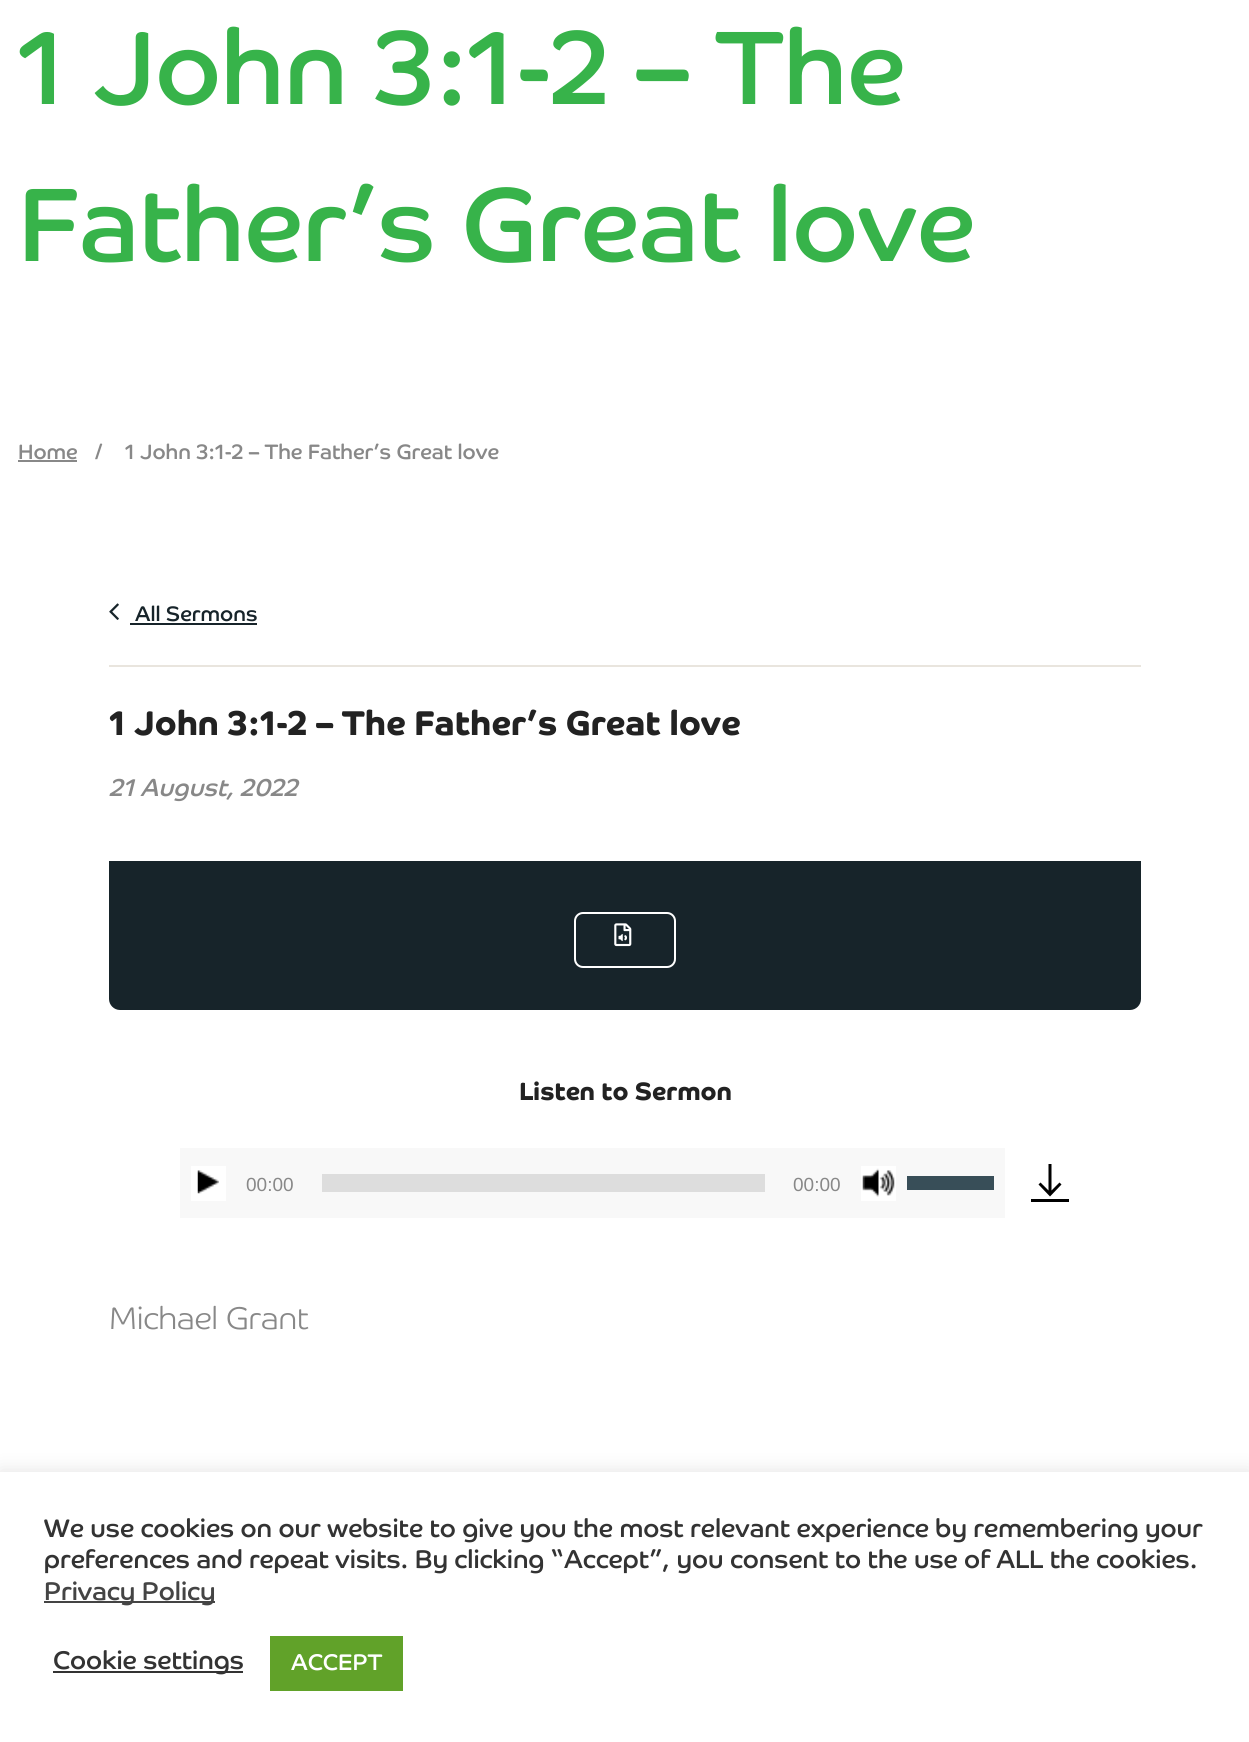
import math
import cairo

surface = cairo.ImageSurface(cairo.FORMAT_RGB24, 1249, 1742)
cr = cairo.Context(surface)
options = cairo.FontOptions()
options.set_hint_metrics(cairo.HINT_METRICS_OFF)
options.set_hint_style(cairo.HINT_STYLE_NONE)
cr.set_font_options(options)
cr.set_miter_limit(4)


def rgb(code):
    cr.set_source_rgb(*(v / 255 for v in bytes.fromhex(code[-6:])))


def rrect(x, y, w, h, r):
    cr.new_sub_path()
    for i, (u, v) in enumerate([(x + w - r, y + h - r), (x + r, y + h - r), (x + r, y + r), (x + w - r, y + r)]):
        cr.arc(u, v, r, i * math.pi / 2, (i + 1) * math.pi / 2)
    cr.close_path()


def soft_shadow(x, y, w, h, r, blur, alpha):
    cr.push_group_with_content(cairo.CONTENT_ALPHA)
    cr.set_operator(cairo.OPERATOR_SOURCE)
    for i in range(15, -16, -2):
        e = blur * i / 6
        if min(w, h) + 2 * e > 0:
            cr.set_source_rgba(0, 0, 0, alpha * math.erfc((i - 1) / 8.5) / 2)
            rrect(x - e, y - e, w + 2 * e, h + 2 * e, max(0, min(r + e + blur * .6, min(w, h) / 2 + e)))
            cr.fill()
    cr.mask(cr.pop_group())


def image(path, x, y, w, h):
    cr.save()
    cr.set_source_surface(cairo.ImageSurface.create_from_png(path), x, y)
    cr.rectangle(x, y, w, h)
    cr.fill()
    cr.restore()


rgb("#ffffff")
cr.paint()
rgb("#888888")
cr.rectangle(18, 460, 59, 2)
cr.fill()
rgb("#e9e5de")
cr.rectangle(109, 665, 1032, 2)
cr.fill()
image("img/1.png", 109, 603, 10, 17)
rgb("#17242a")
cr.rectangle(130, 623, 127, 2)
cr.fill()
cr.new_path()
cr.move_to(109, 861)
cr.line_to(1141, 861)
cr.line_to(1141, 999)
cr.curve_to(1141, 1005, 1136, 1010, 1130, 1010)
cr.line_to(120, 1010)
cr.curve_to(114, 1010, 109, 1005, 109, 999)
cr.close_path()
cr.fill()
rrect(575, 913, 100, 54, 8)
rgb("#ffffff")
cr.stroke()
image("img/2.png", 614, 923, 18, 24)
rgb("#f8f8f8")
cr.rectangle(180, 1148, 825, 70)
cr.fill()
rgb("#ffffff")
cr.rectangle(191, 1166, 35, 35)
cr.fill()
image("img/3.png", 197, 1170, 22, 24)
rgb("#dddddd")
cr.rectangle(322, 1174, 443, 18)
cr.fill()
rgb("#ffffff")
cr.rectangle(861, 1166, 35, 35)
cr.fill()
image("img/4.png", 862, 1168, 33, 29)
rgb("#384e58")
cr.rectangle(907, 1176, 87, 14)
cr.fill()
rgb("#000000")
cr.new_path()
cr.move_to(1061.5, 1184.5)
cr.line_to(1050, 1196.5)
cr.line_to(1038.5, 1184.5)
cr.line_to(1040.5, 1182.5)
cr.line_to(1048.5, 1190.5)
cr.line_to(1048.5, 1164)
cr.line_to(1051.5, 1164)
cr.line_to(1051.5, 1190.5)
cr.line_to(1059.5, 1182.5)
cr.close_path()
cr.move_to(1069, 1199)
cr.line_to(1031, 1199)
cr.line_to(1031, 1202)
cr.line_to(1069, 1202)
cr.close_path()
cr.fill()
rgb("#acabab")
soft_shadow(0, 1470, 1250, 271, 0, 9, 0.3)
for x, y, w, h, color in [
    (0, 1472, 1249, 270, "#ffffff"),
    (44, 1601, 171, 2, "#444444"),
    (53, 1671, 190, 2, "#333333"),
    (270, 1636, 133, 55, "#61a229"),
]:
    rgb(color)
    cr.rectangle(x, y, w, h)
    cr.fill()
cr.select_font_face("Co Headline")
cr.set_font_size(105)
rgb("#37b34a")
cr.move_to(18, 104)
cr.show_text("1 John 3:1-2 – The")
cr.move_to(18, 261)
cr.show_text("Father’s Great love")
cr.set_font_size(21)
rgb("#888888")
for x, y, s in [
    (18, 459, "Home"),
    (95, 459, "/"),
    (125, 459, "1 John 3:1-2 – The Father’s Great love"),
]:
    cr.move_to(x, y)
    cr.show_text(s)
rgb("#17242a")
cr.move_to(135, 621)
cr.show_text("All Sermons")
cr.select_font_face("Co Headline", cairo.FONT_SLANT_NORMAL, cairo.FONT_WEIGHT_BOLD)
cr.set_font_size(34.6)
rgb("#222222")
cr.move_to(109, 735)
cr.show_text("1 John 3:1-2 – The Father’s Great love")
cr.select_font_face("Co Headline", cairo.FONT_SLANT_ITALIC)
cr.set_font_size(24.5)
rgb("#888888")
cr.move_to(109, 796)
cr.show_text("21 August, 2022")
cr.select_font_face("Co Headline", cairo.FONT_SLANT_NORMAL, cairo.FONT_WEIGHT_BOLD)
cr.set_font_size(25.25)
rgb("#222222")
cr.move_to(519, 1100)
cr.show_text("Listen to Sermon")
cr.select_font_face("Liberation Sans")
cr.set_font_size(19)
rgb("#888888")
cr.move_to(246, 1191)
cr.show_text("00:00")
cr.move_to(793, 1191)
cr.show_text("00:00")
cr.select_font_face("Co Headline Light")
cr.set_font_size(31.5)
cr.move_to(109, 1329)
cr.show_text("Michael Grant")
cr.select_font_face("Co Headline")
cr.set_font_size(25.65)
rgb("#333333")
cr.move_to(44, 1537)
cr.show_text("We use cookies on our website to give you the most relevant experience by remembering your")
cr.move_to(44, 1568)
cr.show_text("preferences and repeat visits. By clicking “Accept”, you consent to the use of ALL the cookies.")
rgb("#444444")
cr.move_to(44, 1600)
cr.show_text("Privacy Policy")
rgb("#333333")
cr.move_to(53, 1669)
cr.show_text("Cookie settings")
cr.set_font_size(22.75)
rgb("#ffffff")
cr.move_to(291, 1670)
cr.show_text("ACCEPT")
surface.write_to_png("page.png")
